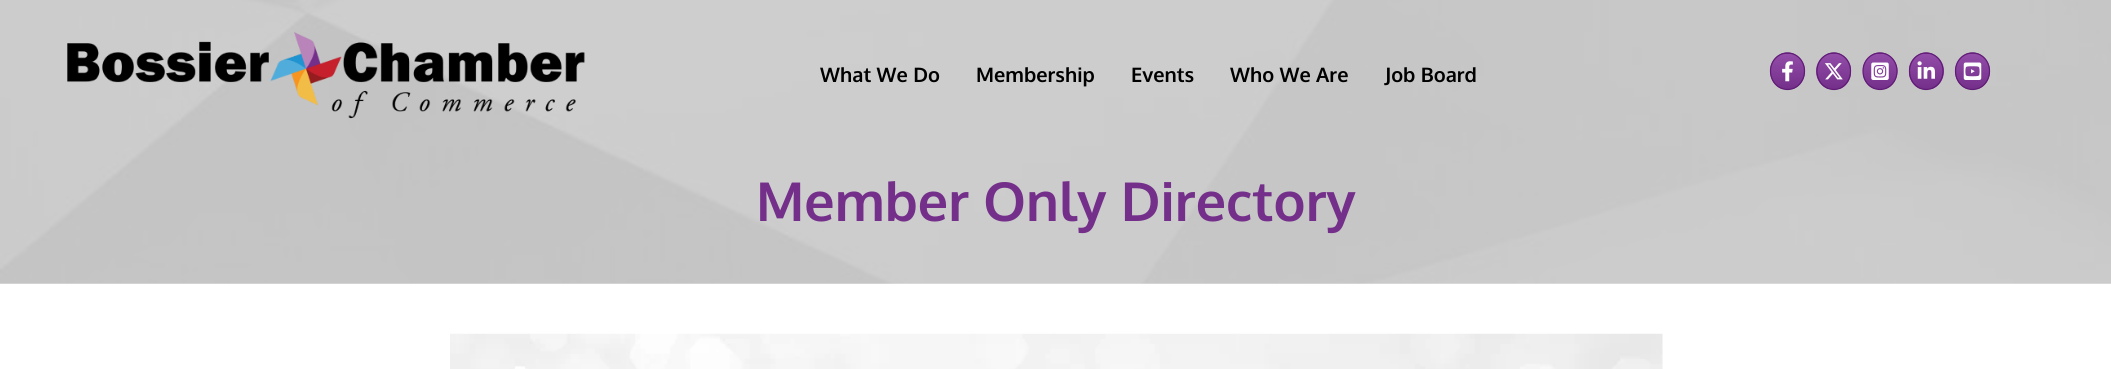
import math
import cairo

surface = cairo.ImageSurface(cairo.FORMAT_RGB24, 2111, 369)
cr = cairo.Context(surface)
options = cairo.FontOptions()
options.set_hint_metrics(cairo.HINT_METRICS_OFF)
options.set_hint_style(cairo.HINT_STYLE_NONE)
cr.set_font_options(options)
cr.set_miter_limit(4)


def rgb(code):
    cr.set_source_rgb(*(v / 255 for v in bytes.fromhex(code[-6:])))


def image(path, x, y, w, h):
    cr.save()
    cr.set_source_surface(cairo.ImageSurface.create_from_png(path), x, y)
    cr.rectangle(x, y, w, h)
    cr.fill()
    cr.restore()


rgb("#ffffff")
cr.paint()
image("img/7.png", 0, 0, 2111, 284)
image("img/1.png", 67, 31, 518, 88)
gradient = cairo.LinearGradient(1788, 19, 1788, 54)
gradient.add_color_stop_rgba(0, 0.573, 0.302, 0.659, 1)
gradient.add_color_stop_rgba(1, 0.455, 0.184, 0.541, 1)
cr.set_source(gradient)
cr.new_path()
cr.move_to(1787.5, 52.5)
cr.curve_to(1790, 52.5, 1792.5, 53, 1794.5, 54)
cr.line_to(1780.5, 54)
cr.curve_to(1782.5, 53, 1785, 52.5, 1787.5, 52.5)
cr.close_path()
cr.fill()
gradient = cairo.LinearGradient(1788, 54, 1788, 89)
gradient.add_color_stop_rgba(0, 0.573, 0.302, 0.659, 1)
gradient.add_color_stop_rgba(1, 0.455, 0.184, 0.541, 1)
cr.set_source(gradient)
cr.new_path()
cr.move_to(1782, 89)
cr.curve_to(1775, 86.5, 1770, 79.5, 1770, 71)
cr.curve_to(1770, 63.5, 1774.5, 57, 1780.5, 54)
cr.line_to(1794.5, 54)
cr.curve_to(1800.5, 57, 1805, 63.5, 1805, 71)
cr.curve_to(1805, 79.5, 1800, 86.5, 1793, 89)
cr.close_path()
cr.fill()
cr.new_path()
cr.move_to(1787.5, 53)
cr.curve_to(1797, 53, 1804.5, 61, 1804.5, 71)
cr.curve_to(1804.5, 81.5, 1797, 89.5, 1787.5, 89.5)
cr.curve_to(1778, 89.5, 1770.5, 81.5, 1770.5, 71)
cr.curve_to(1770.5, 61, 1778, 53, 1787.5, 53)
cr.close_path()
rgb("#601b76")
cr.set_line_width(1.2)
cr.stroke()
image("img/2.png", 1782, 61, 11, 21)
gradient = cairo.LinearGradient(1834, 19, 1834, 54)
gradient.add_color_stop_rgba(0, 0.573, 0.302, 0.659, 1)
gradient.add_color_stop_rgba(1, 0.455, 0.184, 0.541, 1)
cr.set_source(gradient)
cr.new_path()
cr.move_to(1834, 52.5)
cr.curve_to(1836, 52.5, 1838.5, 53, 1840.5, 54)
cr.line_to(1827, 54)
cr.curve_to(1829, 53, 1831.5, 52.5, 1834, 52.5)
cr.close_path()
cr.fill()
gradient = cairo.LinearGradient(1834, 54, 1834, 89)
gradient.add_color_stop_rgba(0, 0.573, 0.302, 0.659, 1)
gradient.add_color_stop_rgba(1, 0.455, 0.184, 0.541, 1)
cr.set_source(gradient)
cr.new_path()
cr.move_to(1828, 89)
cr.curve_to(1821, 86.5, 1816, 79.5, 1816, 71)
cr.curve_to(1816, 63.5, 1820.5, 57, 1827, 54)
cr.line_to(1840.5, 54)
cr.curve_to(1846, 56.5, 1850, 61.5, 1851, 68)
cr.line_to(1851, 74.5)
cr.curve_to(1850, 81, 1845.5, 87, 1839.5, 89)
cr.close_path()
cr.fill()
cr.new_path()
cr.move_to(1834, 53)
cr.curve_to(1843, 53, 1850.5, 61, 1850.5, 71)
cr.curve_to(1850.5, 81.5, 1843, 89.5, 1834, 89.5)
cr.curve_to(1824.5, 89.5, 1817, 81.5, 1817, 71)
cr.curve_to(1817, 61, 1824.5, 53, 1834, 53)
cr.close_path()
rgb("#601b76")
cr.stroke()
image("img/3.png", 1824, 63, 19, 17)
gradient = cairo.LinearGradient(1880, 19, 1880, 54)
gradient.add_color_stop_rgba(0, 0.573, 0.302, 0.659, 1)
gradient.add_color_stop_rgba(1, 0.455, 0.184, 0.541, 1)
cr.set_source(gradient)
cr.new_path()
cr.move_to(1880, 52.5)
cr.curve_to(1882.5, 52.5, 1885, 53, 1887, 54)
cr.line_to(1873, 54)
cr.curve_to(1875, 53, 1877.5, 52.5, 1880, 52.5)
cr.close_path()
cr.fill()
gradient = cairo.LinearGradient(1880, 54, 1880, 89)
gradient.add_color_stop_rgba(0, 0.573, 0.302, 0.659, 1)
gradient.add_color_stop_rgba(1, 0.455, 0.184, 0.541, 1)
cr.set_source(gradient)
cr.new_path()
cr.move_to(1863, 67)
cr.curve_to(1864.5, 61, 1868, 56.5, 1873, 54)
cr.line_to(1887, 54)
cr.curve_to(1893, 57, 1897.5, 63.5, 1897.5, 71)
cr.curve_to(1897.5, 79.5, 1892.5, 86.5, 1885.5, 89)
cr.line_to(1874.5, 89)
cr.curve_to(1868.5, 87, 1864.5, 82, 1863, 75.5)
cr.close_path()
cr.fill()
cr.new_path()
cr.move_to(1880, 53)
cr.curve_to(1889.5, 53, 1897, 61, 1897, 71)
cr.curve_to(1897, 81.5, 1889.5, 89.5, 1880, 89.5)
cr.curve_to(1870.5, 89.5, 1863, 81.5, 1863, 71)
cr.curve_to(1863, 61, 1870.5, 53, 1880, 53)
cr.close_path()
rgb("#601b76")
cr.stroke()
image("img/4.png", 1871, 62, 18, 18)
gradient = cairo.LinearGradient(1926, 19, 1926, 54)
gradient.add_color_stop_rgba(0, 0.573, 0.302, 0.659, 1)
gradient.add_color_stop_rgba(1, 0.455, 0.184, 0.541, 1)
cr.set_source(gradient)
cr.new_path()
cr.move_to(1926, 52.5)
cr.curve_to(1928.5, 52.5, 1931, 53, 1933, 54)
cr.line_to(1919.5, 54)
cr.curve_to(1921.5, 53, 1924, 52.5, 1926, 52.5)
cr.close_path()
cr.fill()
gradient = cairo.LinearGradient(1926, 54, 1926, 89)
gradient.add_color_stop_rgba(0, 0.573, 0.302, 0.659, 1)
gradient.add_color_stop_rgba(1, 0.455, 0.184, 0.541, 1)
cr.set_source(gradient)
cr.new_path()
cr.move_to(1909, 68)
cr.curve_to(1910, 61.5, 1914, 56.5, 1919.5, 54)
cr.line_to(1933, 54)
cr.curve_to(1939.5, 57, 1944, 63.5, 1944, 71)
cr.curve_to(1944, 79.5, 1939, 86.5, 1932, 89)
cr.line_to(1920.5, 89)
cr.curve_to(1914.5, 87, 1910, 81, 1909, 74.5)
cr.close_path()
cr.fill()
cr.new_path()
cr.move_to(1926, 53)
cr.curve_to(1935.5, 53, 1943, 61, 1943, 71)
cr.curve_to(1943, 81.5, 1935.5, 89.5, 1926, 89.5)
cr.curve_to(1917, 89.5, 1909.5, 81.5, 1909.5, 71)
cr.curve_to(1909.5, 61, 1917, 53, 1926, 53)
cr.close_path()
rgb("#601b76")
cr.stroke()
image("img/5.png", 1917, 61, 18, 18)
gradient = cairo.LinearGradient(1973, 19, 1973, 54)
gradient.add_color_stop_rgba(0, 0.573, 0.302, 0.659, 1)
gradient.add_color_stop_rgba(1, 0.455, 0.184, 0.541, 1)
cr.set_source(gradient)
cr.new_path()
cr.move_to(1972.5, 52.5)
cr.curve_to(1975, 52.5, 1977.5, 53, 1979.5, 54)
cr.line_to(1965.5, 54)
cr.curve_to(1967.5, 53, 1970, 52.5, 1972.5, 52.5)
cr.close_path()
cr.fill()
gradient = cairo.LinearGradient(1973, 54, 1973, 89)
gradient.add_color_stop_rgba(0, 0.573, 0.302, 0.659, 1)
gradient.add_color_stop_rgba(1, 0.455, 0.184, 0.541, 1)
cr.set_source(gradient)
cr.new_path()
cr.move_to(1967, 89)
cr.curve_to(1960, 86.5, 1955, 79.5, 1955, 71)
cr.curve_to(1955, 63.5, 1959.5, 57, 1965.5, 54)
cr.line_to(1979.5, 54)
cr.curve_to(1985.5, 57, 1990, 63.5, 1990, 71)
cr.curve_to(1990, 79.5, 1985, 86.5, 1978, 89)
cr.close_path()
cr.fill()
cr.new_path()
cr.move_to(1972.5, 53)
cr.curve_to(1982, 53, 1989.5, 61, 1989.5, 71)
cr.curve_to(1989.5, 81.5, 1982, 89.5, 1972.5, 89.5)
cr.curve_to(1963, 89.5, 1955.5, 81.5, 1955.5, 71)
cr.curve_to(1955.5, 61, 1963, 53, 1972.5, 53)
cr.close_path()
rgb("#601b76")
cr.stroke()
image("img/6.png", 1963, 62, 19, 18)
image("img/8.png", 450, 333, 1213, 36)
cr.select_font_face("Oxygen", cairo.FONT_SLANT_NORMAL, cairo.FONT_WEIGHT_BOLD)
cr.set_font_size(20)
rgb("#000000")
for x, y, s in [
    (820, 82, "What We Do"),
    (976, 82, "Membership"),
    (1131, 82, "Events"),
    (1230, 82, "Who We Are"),
    (1385, 82, "Job Board"),
]:
    cr.move_to(x, y)
    cr.show_text(s)
cr.set_font_size(53.75)
rgb("#742f8a")
cr.move_to(756, 221)
cr.show_text("Member Only Directory")
surface.write_to_png("page.png")
